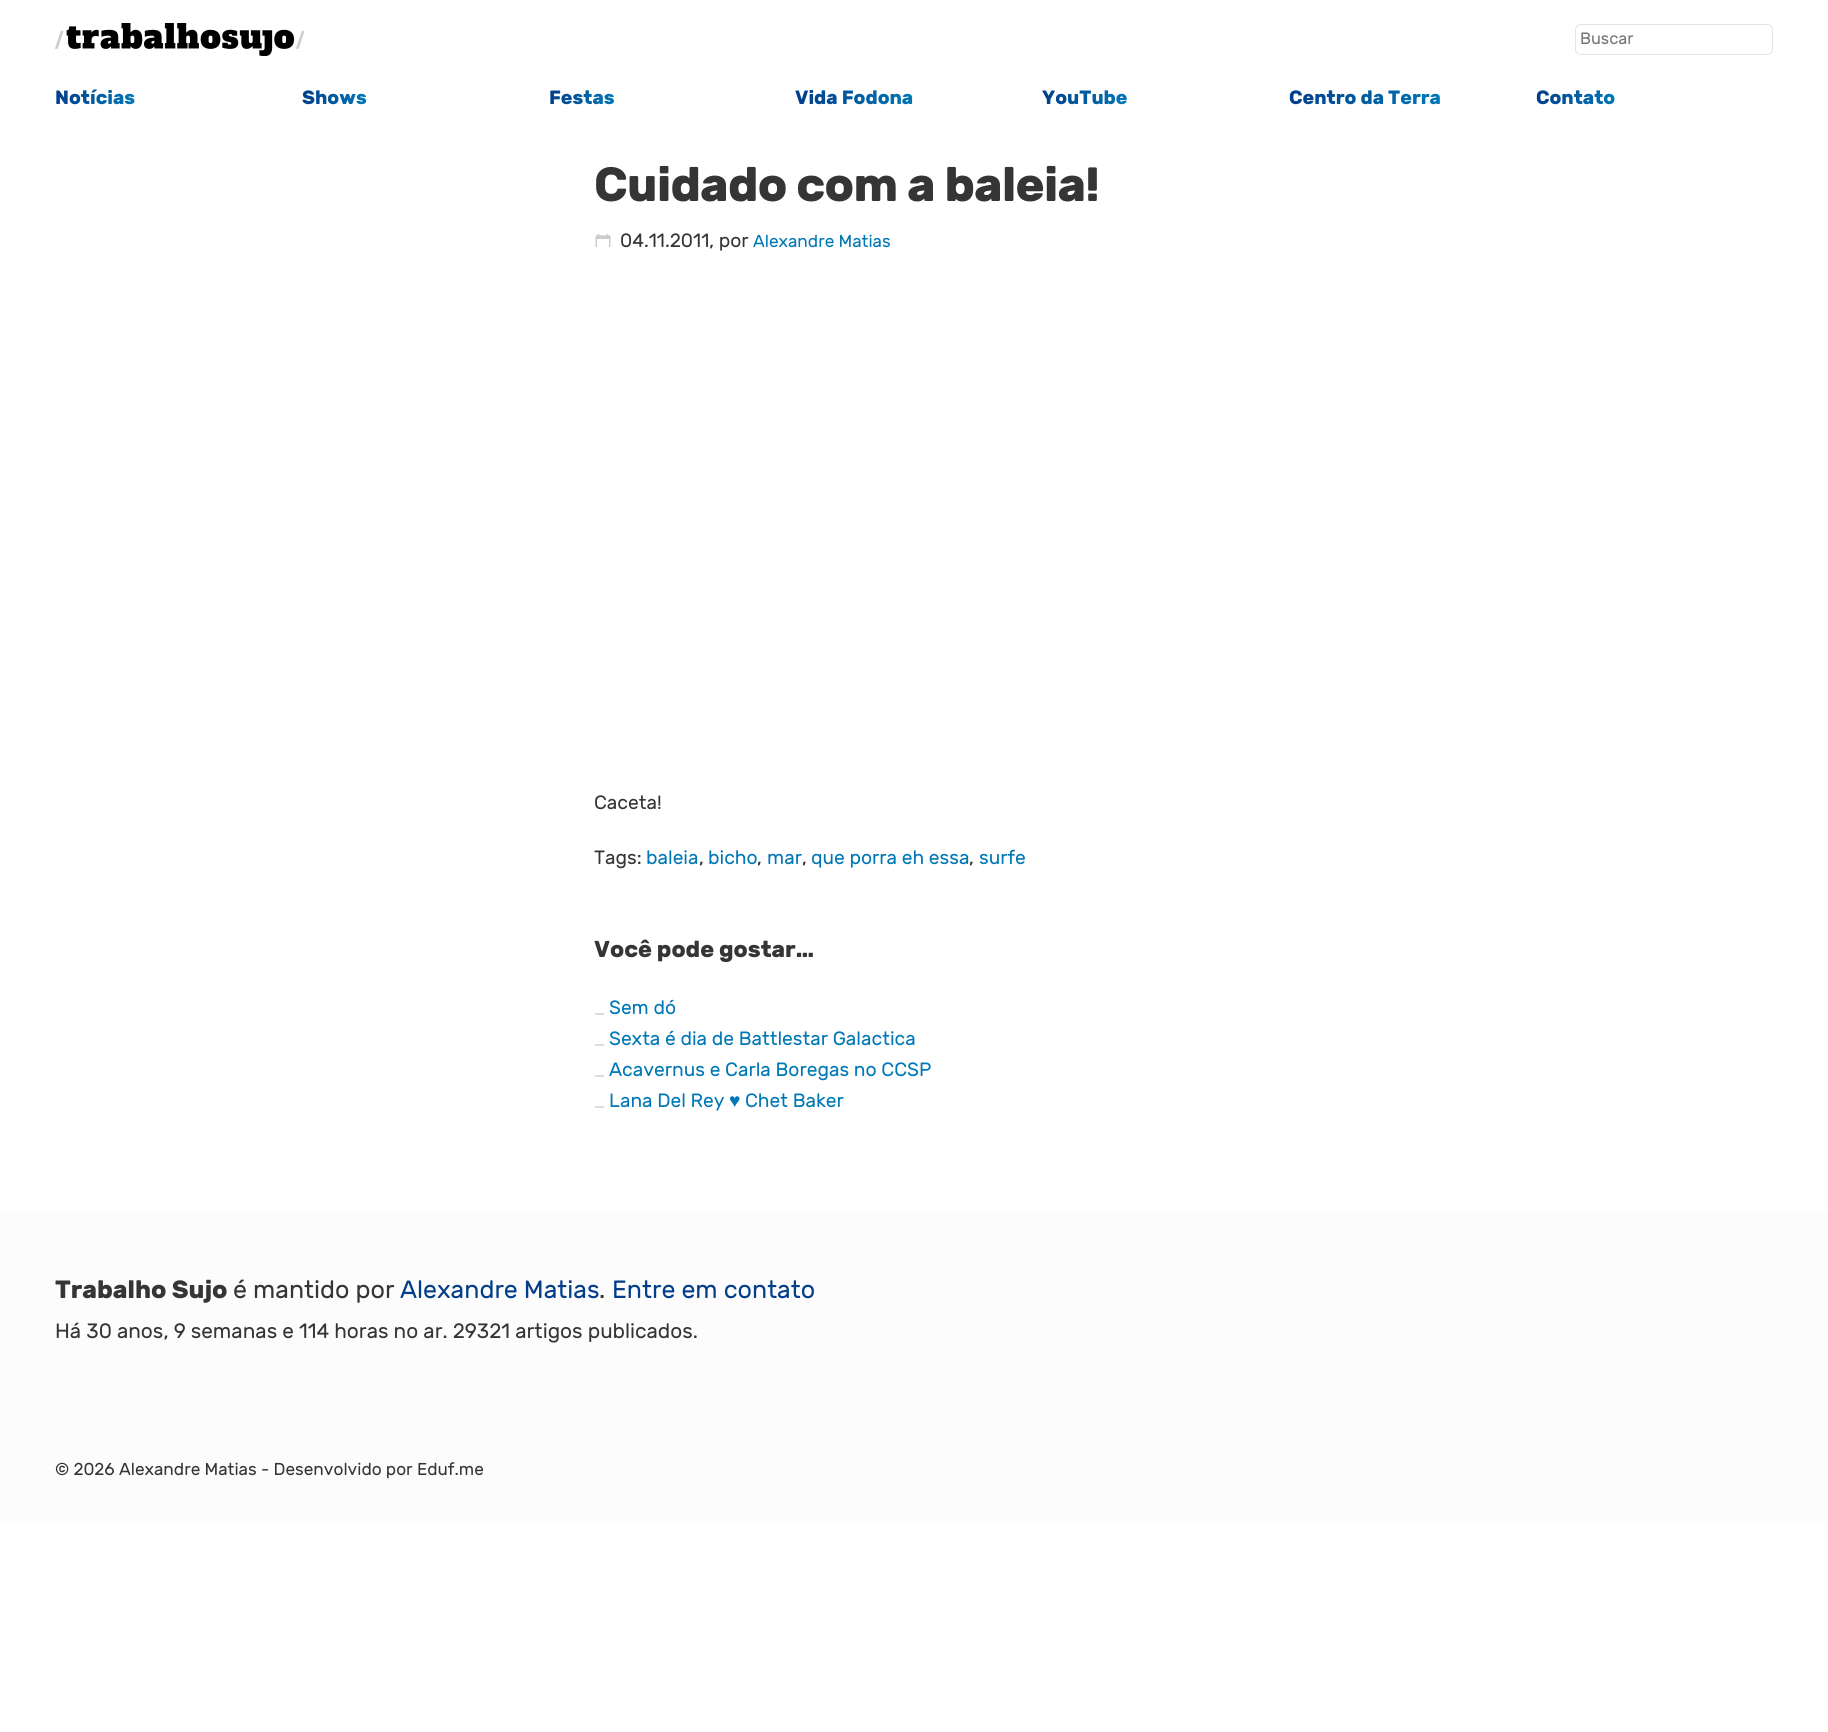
import math
import cairo

surface = cairo.ImageSurface(cairo.FORMAT_RGB24, 1828, 1732)
cr = cairo.Context(surface)
options = cairo.FontOptions()
options.set_hint_metrics(cairo.HINT_METRICS_OFF)
options.set_hint_style(cairo.HINT_STYLE_NONE)
cr.set_font_options(options)
cr.set_miter_limit(4)


def rgb(code):
    cr.set_source_rgb(*(v / 255 for v in bytes.fromhex(code[-6:])))


def tracked(x, y, s, letter, word):
    cr.move_to(x, y)
    for ch in s:
        cr.show_text(ch)
        cr.rel_move_to(letter + word * (ch == ' '), 0)


def rrect(x, y, w, h, r):
    cr.new_sub_path()
    for i, (u, v) in enumerate([(x + w - r, y + h - r), (x + r, y + h - r), (x + r, y + r), (x + w - r, y + r)]):
        cr.arc(u, v, r, i * math.pi / 2, (i + 1) * math.pi / 2)
    cr.close_path()


def image(path, x, y, w, h):
    cr.save()
    cr.set_source_surface(cairo.ImageSurface.create_from_png(path), x, y)
    cr.rectangle(x, y, w, h)
    cr.fill()
    cr.restore()


rgb("#ffffff")
cr.paint()
image("img/1.png", 55, 23, 249, 33)
rrect(1575.5, 24.5, 197, 30, 5.5)
rgb("#e4e4e4")
cr.set_line_width(1)
cr.stroke()
image("img/2.png", 595, 233, 16, 14)
rgb("#fcfcfc")
cr.rectangle(0, 1213, 1828, 309)
cr.fill()
cr.select_font_face("Rubik")
cr.set_font_size(16.5)
rgb("#757575")
cr.move_to(1580, 44)
cr.show_text("Buscar")
cr.select_font_face("Rubik", cairo.FONT_SLANT_NORMAL, cairo.FONT_WEIGHT_BOLD)
cr.set_font_size(19.25)
gradient = cairo.LinearGradient(55, 98, 135, 98)
gradient.add_color_stop_rgba(0, 0.008, 0.243, 0.541, 1)
gradient.add_color_stop_rgba(1, 0, 0.467, 0.714, 1)
cr.set_source(gradient)
cr.move_to(55, 104)
cr.show_text("Notícias")
gradient = cairo.LinearGradient(302, 98, 366, 98)
gradient.add_color_stop_rgba(0, 0.008, 0.243, 0.541, 1)
gradient.add_color_stop_rgba(1, 0, 0.467, 0.714, 1)
cr.set_source(gradient)
cr.move_to(302, 104)
cr.show_text("Shows")
gradient = cairo.LinearGradient(549, 98, 614, 98)
gradient.add_color_stop_rgba(0, 0.008, 0.243, 0.541, 1)
gradient.add_color_stop_rgba(1, 0, 0.467, 0.714, 1)
cr.set_source(gradient)
cr.move_to(549, 104)
cr.show_text("Festas")
gradient = cairo.LinearGradient(795, 98, 913, 98)
gradient.add_color_stop_rgba(0, 0.008, 0.243, 0.541, 1)
gradient.add_color_stop_rgba(1, 0, 0.467, 0.714, 1)
cr.set_source(gradient)
cr.move_to(795, 104)
cr.show_text("Vida Fodona")
gradient = cairo.LinearGradient(1042, 98, 1127, 98)
gradient.add_color_stop_rgba(0, 0.008, 0.243, 0.541, 1)
gradient.add_color_stop_rgba(1, 0, 0.467, 0.714, 1)
cr.set_source(gradient)
cr.move_to(1042, 104)
cr.show_text("YouTube")
gradient = cairo.LinearGradient(1289, 98, 1440, 98)
gradient.add_color_stop_rgba(0, 0.008, 0.243, 0.541, 1)
gradient.add_color_stop_rgba(1, 0, 0.467, 0.714, 1)
cr.set_source(gradient)
cr.move_to(1289, 104)
cr.show_text("Centro da Terra")
gradient = cairo.LinearGradient(1536, 98, 1615, 98)
gradient.add_color_stop_rgba(0, 0.008, 0.243, 0.541, 1)
gradient.add_color_stop_rgba(1, 0, 0.467, 0.714, 1)
cr.set_source(gradient)
cr.move_to(1536, 104)
cr.show_text("Contato")
cr.set_font_size(48)
rgb("#353535")
tracked(594, 201, "Cuidado com a baleia!", -0.6, 0)
cr.select_font_face("Rubik")
cr.set_font_size(19.25)
cr.move_to(620, 247)
cr.show_text("04.11.2011, por")
cr.set_font_size(17.25)
rgb("#0077b6")
cr.move_to(753, 247)
cr.show_text("Alexandre Matias")
cr.set_font_size(19.25)
rgb("#353535")
cr.move_to(594, 809)
cr.show_text("Caceta!")
cr.move_to(594, 864)
cr.show_text("Tags:")
rgb("#0077b6")
cr.move_to(646, 864)
cr.show_text("baleia")
rgb("#353535")
cr.move_to(699, 864)
cr.show_text(",")
rgb("#0077b6")
cr.move_to(708, 864)
cr.show_text("bicho")
rgb("#353535")
cr.move_to(757, 864)
cr.show_text(",")
rgb("#0077b6")
cr.move_to(767, 864)
cr.show_text("mar")
rgb("#353535")
cr.move_to(802, 864)
cr.show_text(",")
rgb("#0077b6")
cr.move_to(811, 864)
cr.show_text("que porra eh essa")
rgb("#353535")
cr.move_to(969, 864)
cr.show_text(",")
rgb("#0077b6")
cr.move_to(979, 864)
cr.show_text("surfe")
cr.select_font_face("Rubik", cairo.FONT_SLANT_NORMAL, cairo.FONT_WEIGHT_BOLD)
cr.set_font_size(23)
rgb("#353535")
cr.move_to(594, 957)
cr.show_text("Você pode gostar…")
cr.select_font_face("Rubik")
cr.set_font_size(15)
rgb("#c9c9c9")
cr.move_to(594, 1014)
cr.show_text("_")
cr.set_font_size(19.25)
rgb("#0077b6")
cr.move_to(609, 1014)
cr.show_text("Sem dó")
cr.set_font_size(15)
rgb("#c9c9c9")
cr.move_to(594, 1045)
cr.show_text("_")
cr.set_font_size(19.25)
rgb("#0077b6")
cr.move_to(609, 1045)
cr.show_text("Sexta é dia de Battlestar Galactica")
cr.set_font_size(15)
rgb("#c9c9c9")
cr.move_to(594, 1076)
cr.show_text("_")
cr.set_font_size(19.25)
rgb("#0077b6")
cr.move_to(609, 1076)
cr.show_text("Acavernus e Carla Boregas no CCSP")
cr.set_font_size(15)
rgb("#c9c9c9")
cr.move_to(594, 1107)
cr.show_text("_")
cr.set_font_size(19.25)
rgb("#0077b6")
cr.move_to(609, 1107)
cr.show_text("Lana Del Rey")
cr.select_font_face("Liberation Sans")
cr.move_to(729, 1107)
cr.show_text("♥")
cr.select_font_face("Rubik")
cr.move_to(745, 1107)
cr.show_text("Chet Baker")
cr.select_font_face("Rubik", cairo.FONT_SLANT_NORMAL, cairo.FONT_WEIGHT_BOLD)
cr.set_font_size(25)
rgb("#353535")
cr.move_to(55, 1298)
cr.show_text("Trabalho Sujo")
cr.select_font_face("Rubik")
cr.move_to(233, 1298)
cr.show_text("é mantido por")
rgb("#023e8a")
cr.move_to(400, 1298)
cr.show_text("Alexandre Matias")
rgb("#353535")
cr.move_to(599, 1298)
cr.show_text(".")
rgb("#023e8a")
cr.move_to(612, 1298)
cr.show_text("Entre em contato")
cr.set_font_size(20.8)
rgb("#353535")
cr.move_to(55, 1338)
cr.show_text("Há 30 anos, 9 semanas e 114 horas no ar. 29321 artigos publicados.")
cr.set_font_size(17.25)
for x, y, s in [
    (55, 1475, "© 2026"),
    (119, 1475, "Alexandre Matias"),
    (261, 1475, "- Desenvolvido por"),
    (417, 1475, "Eduf.me"),
]:
    cr.move_to(x, y)
    cr.show_text(s)
surface.write_to_png("page.png")
